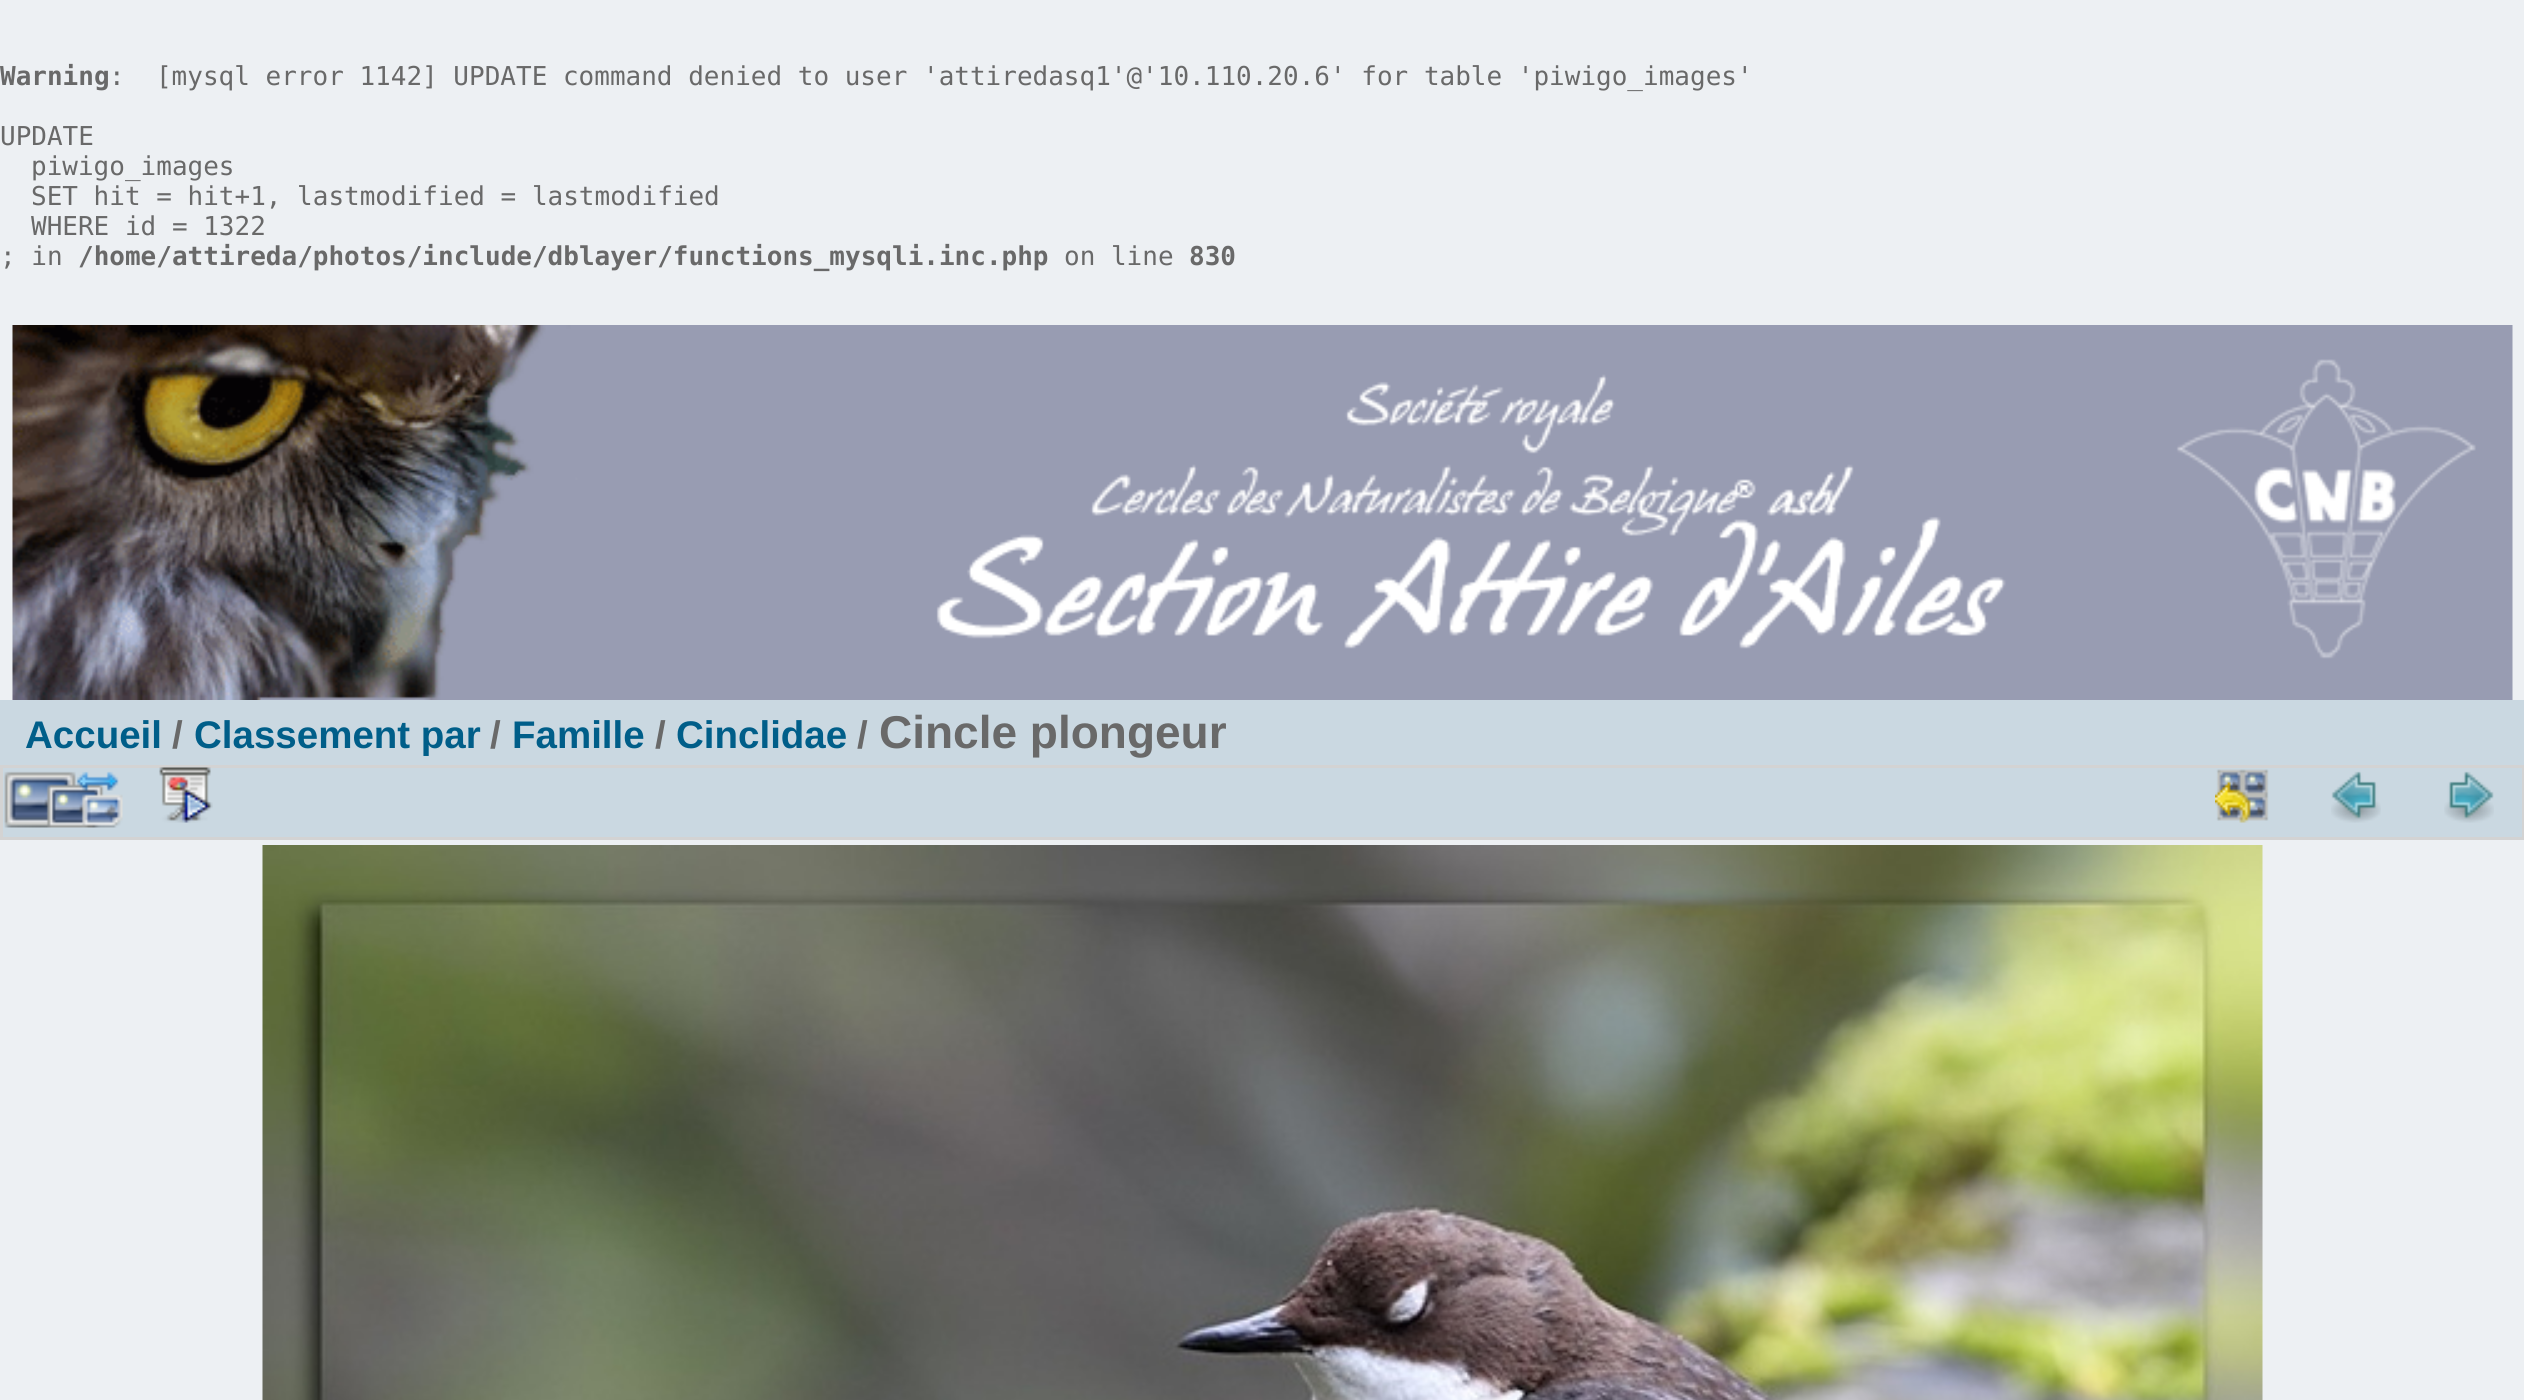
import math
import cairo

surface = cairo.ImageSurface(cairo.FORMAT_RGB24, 2524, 1400)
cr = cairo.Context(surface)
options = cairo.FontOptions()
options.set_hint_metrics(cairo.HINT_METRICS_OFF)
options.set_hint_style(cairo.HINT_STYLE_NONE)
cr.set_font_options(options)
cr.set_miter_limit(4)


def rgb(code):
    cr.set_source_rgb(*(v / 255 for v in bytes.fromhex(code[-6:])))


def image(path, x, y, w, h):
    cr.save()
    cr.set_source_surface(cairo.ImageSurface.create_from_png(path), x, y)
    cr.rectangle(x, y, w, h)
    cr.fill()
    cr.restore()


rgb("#edf0f3")
cr.paint()
image("img/1.png", 12, 325, 2501, 375)
rgb("#cad8e1")
cr.rectangle(0, 700, 2524, 65)
cr.fill()
cr.rectangle(1.5, 766.5, 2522, 72)
cr.fill_preserve()
rgb("#d3d3d3")
cr.set_line_width(3)
cr.stroke()
image("img/2.png", 4, 771, 119, 57)
image("img/3.png", 159, 767, 54, 56)
image("img/4.png", 2215, 769, 54, 54)
image("img/5.png", 2331, 771, 50, 52)
image("img/6.png", 2444, 771, 50, 52)
image("img/7.png", 262, 845, 2001, 555)
cr.select_font_face("DejaVu Sans Mono", cairo.FONT_SLANT_NORMAL, cairo.FONT_WEIGHT_BOLD)
cr.set_font_size(26)
rgb("#696969")
cr.move_to(0, 85)
cr.show_text("Warning")
cr.select_font_face("DejaVu Sans Mono")
for x, y, s in [
    (109, 85, ":  [mysql error 1142] UPDATE command denied to user 'attiredasq1'@'10.110.20.6' for table 'piwigo_images'"),
    (0, 145, "UPDATE"),
    (31, 175, "piwigo_images"),
    (31, 205, "SET hit = hit+1, lastmodified = lastmodified"),
    (31, 235, "WHERE id = 1322"),
    (0, 265, "; in"),
]:
    cr.move_to(x, y)
    cr.show_text(s)
cr.select_font_face("DejaVu Sans Mono", cairo.FONT_SLANT_NORMAL, cairo.FONT_WEIGHT_BOLD)
cr.move_to(78, 265)
cr.show_text("/home/attireda/photos/include/dblayer/functions_mysqli.inc.php")
cr.select_font_face("DejaVu Sans Mono")
cr.move_to(1064, 265)
cr.show_text("on line")
cr.select_font_face("DejaVu Sans Mono", cairo.FONT_SLANT_NORMAL, cairo.FONT_WEIGHT_BOLD)
cr.move_to(1189, 265)
cr.show_text("830")
cr.select_font_face("Liberation Sans", cairo.FONT_SLANT_NORMAL, cairo.FONT_WEIGHT_BOLD)
cr.set_font_size(38.5)
rgb("#005e89")
cr.move_to(25, 748)
cr.show_text("Accueil")
rgb("#696969")
cr.move_to(172, 748)
cr.show_text("/")
rgb("#005e89")
cr.move_to(194, 748)
cr.show_text("Classement par")
rgb("#696969")
cr.move_to(490, 748)
cr.show_text("/")
rgb("#005e89")
cr.move_to(512, 748)
cr.show_text("Famille")
rgb("#696969")
cr.move_to(655, 748)
cr.show_text("/")
rgb("#005e89")
cr.move_to(676, 748)
cr.show_text("Cinclidae")
rgb("#696969")
cr.move_to(857, 748)
cr.show_text("/")
cr.set_font_size(46)
cr.move_to(879, 748)
cr.show_text("Cincle plongeur")
surface.write_to_png("page.png")
